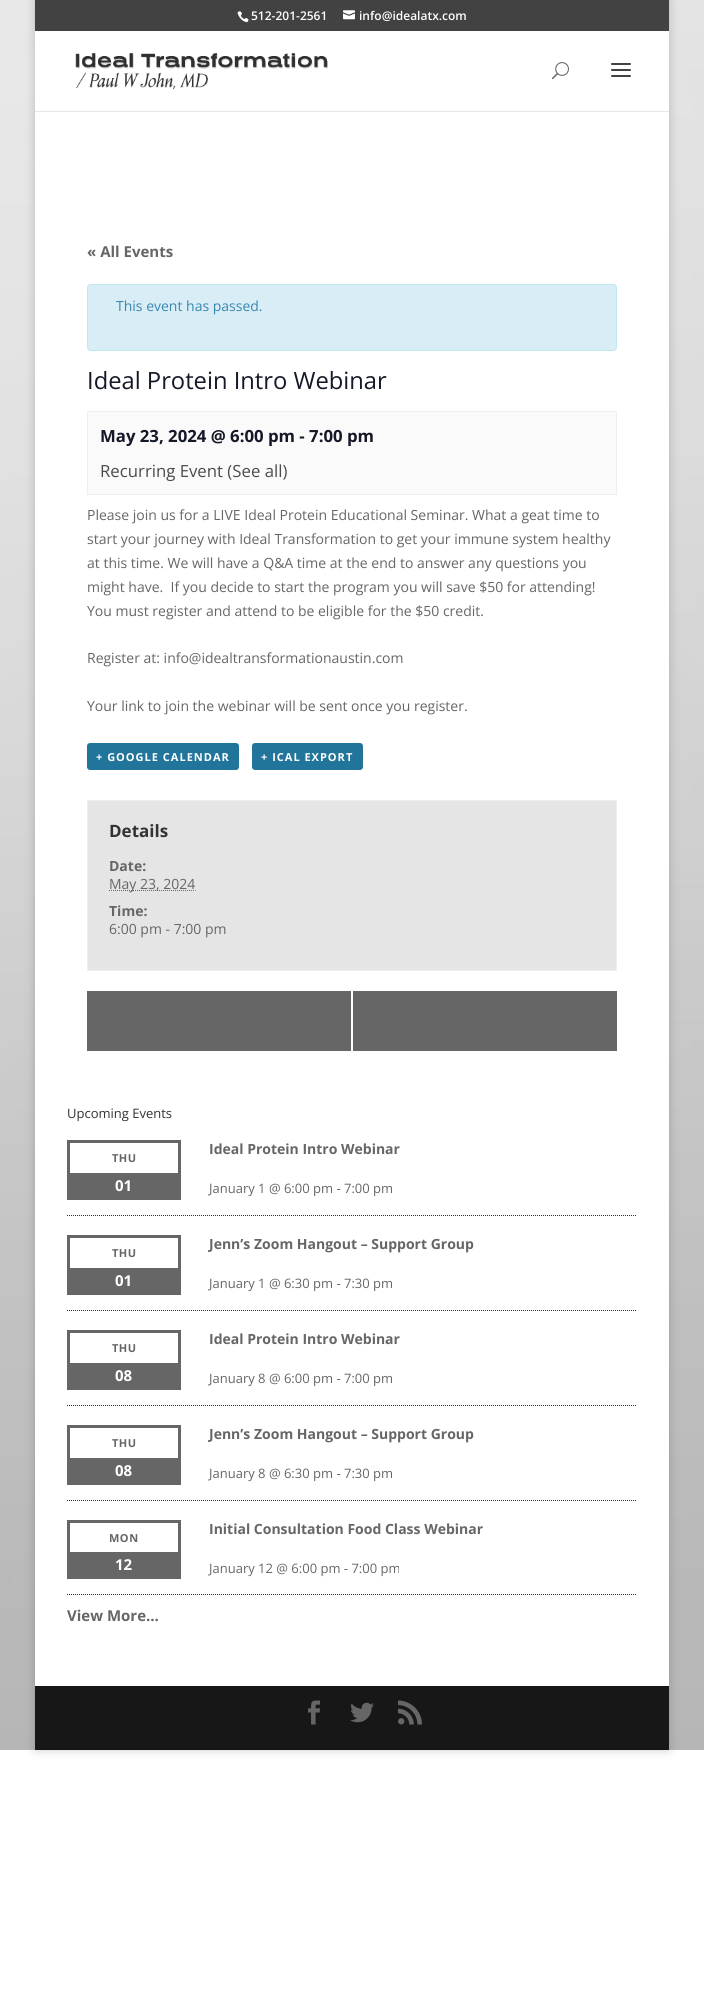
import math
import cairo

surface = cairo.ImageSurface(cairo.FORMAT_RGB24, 704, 1995)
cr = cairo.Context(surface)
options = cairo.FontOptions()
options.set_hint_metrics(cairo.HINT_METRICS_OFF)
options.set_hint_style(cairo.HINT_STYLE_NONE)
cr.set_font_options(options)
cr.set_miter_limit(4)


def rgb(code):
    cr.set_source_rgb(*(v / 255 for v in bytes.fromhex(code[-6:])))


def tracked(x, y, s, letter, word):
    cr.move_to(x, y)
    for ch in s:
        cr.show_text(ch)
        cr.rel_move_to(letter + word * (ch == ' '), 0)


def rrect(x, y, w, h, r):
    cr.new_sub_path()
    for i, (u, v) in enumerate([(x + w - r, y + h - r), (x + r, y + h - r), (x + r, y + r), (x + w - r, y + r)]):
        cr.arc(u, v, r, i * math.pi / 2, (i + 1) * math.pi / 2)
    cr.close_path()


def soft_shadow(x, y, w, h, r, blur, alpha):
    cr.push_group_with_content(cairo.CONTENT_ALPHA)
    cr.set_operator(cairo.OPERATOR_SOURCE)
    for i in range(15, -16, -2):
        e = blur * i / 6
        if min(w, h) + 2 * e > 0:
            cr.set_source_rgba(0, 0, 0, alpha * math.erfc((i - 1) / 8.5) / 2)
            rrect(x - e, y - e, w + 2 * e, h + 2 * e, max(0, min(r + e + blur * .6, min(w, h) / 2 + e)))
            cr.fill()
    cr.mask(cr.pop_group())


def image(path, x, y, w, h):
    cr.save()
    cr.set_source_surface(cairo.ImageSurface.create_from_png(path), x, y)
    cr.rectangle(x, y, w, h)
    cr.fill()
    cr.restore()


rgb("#ffffff")
cr.paint()
image("img/1.png", 0, 0, 704, 1750)
rgb("#000000")
soft_shadow(35, 0, 634, 1750, 0, 5, 0.2)
rgb("#424242")
cr.rectangle(35, 0, 634, 31)
cr.fill()
image("img/2.png", 237, 11, 12, 12)
image("img/3.png", 343, 10, 12, 10)
rgb("#e6e6e6")
cr.rectangle(35, 111, 634, 1)
cr.fill()
rgb("#ffffff")
cr.rectangle(35, 31, 634, 80)
cr.fill()
image("img/4.png", 75, 52, 253, 37)
image("img/5.png", 552, 62, 17, 18)
image("img/6.png", 611, 63, 20, 14)
cr.rectangle(35, 112, 634, 1574)
cr.fill()
rgb("#d9edf7")
rrect(87.5, 284.5, 529, 66, 3.5)
cr.fill_preserve()
rgb("#bce8f1")
cr.set_line_width(1)
cr.stroke()
rgb("#fafafa")
cr.rectangle(87.5, 411.5, 529, 83)
cr.fill_preserve()
rgb("#eeeeee")
cr.stroke()
rgb("#21759b")
rrect(87, 743, 152, 27, 3)
cr.fill()
rrect(252, 743, 111, 27, 3)
cr.fill()
rgb("#e5e5e5")
cr.rectangle(87.5, 800.5, 529, 170)
cr.fill_preserve()
rgb("#eeeeee")
cr.stroke()
cr.new_path()
cr.move_to(109, 890.5)
cr.line_to(195.5, 890.5)
rgb("#666666")
cr.set_dash([1, 1])
cr.stroke()
cr.rectangle(87, 991, 264, 60)
cr.fill()
cr.rectangle(353, 991, 264, 60)
cr.fill()
cr.new_path()
cr.move_to(67, 1215.5)
cr.line_to(637, 1215.5)
rgb("#2f2f2f")
cr.stroke()
rgb("#666666")
cr.rectangle(67, 1140, 114, 60)
cr.fill()
rgb("#ffffff")
cr.rectangle(70, 1143, 108, 30)
cr.fill()
cr.new_path()
cr.move_to(67, 1310.5)
cr.line_to(637, 1310.5)
rgb("#2f2f2f")
cr.stroke()
rgb("#666666")
cr.rectangle(67, 1235, 114, 60)
cr.fill()
rgb("#ffffff")
cr.rectangle(70, 1238, 108, 30)
cr.fill()
cr.new_path()
cr.move_to(67, 1405.5)
cr.line_to(637, 1405.5)
rgb("#2f2f2f")
cr.stroke()
rgb("#666666")
cr.rectangle(67, 1330, 114, 60)
cr.fill()
rgb("#ffffff")
cr.rectangle(70, 1333, 108, 30)
cr.fill()
cr.new_path()
cr.move_to(67, 1500.5)
cr.line_to(637, 1500.5)
rgb("#2f2f2f")
cr.stroke()
rgb("#666666")
cr.rectangle(67, 1425, 114, 60)
cr.fill()
rgb("#ffffff")
cr.rectangle(70, 1428, 108, 30)
cr.fill()
cr.new_path()
cr.move_to(67, 1594.5)
cr.line_to(637, 1594.5)
rgb("#2f2f2f")
cr.stroke()
for x, y, w, h, color in [
    (67, 1520, 114, 59, "#666666"),
    (70, 1523, 108, 29, "#ffffff"),
    (35, 1686, 634, 64, "#171717"),
]:
    rgb(color)
    cr.rectangle(x, y, w, h)
    cr.fill()
image("img/7.png", 308, 1700, 12, 25)
image("img/8.png", 350, 1702, 24, 21)
image("img/9.png", 398, 1700, 24, 25)
cr.select_font_face("Open Sans SemiBold")
cr.set_font_size(12)
rgb("#ffffff")
cr.move_to(251, 20)
cr.show_text("512-201-2561")
cr.move_to(359, 20)
cr.show_text("info@idealatx.com")
cr.select_font_face("Open Sans", cairo.FONT_SLANT_NORMAL, cairo.FONT_WEIGHT_BOLD)
cr.set_font_size(15)
rgb("#666666")
cr.move_to(87, 257)
cr.show_text("« All Events")
cr.select_font_face("Open Sans")
cr.set_font_size(14)
rgb("#3a87ad")
cr.move_to(116, 311)
cr.show_text("This event has passed.")
cr.set_font_size(23.75)
rgb("#141827")
cr.move_to(87, 389)
cr.show_text("Ideal Protein Intro Webinar")
cr.select_font_face("Open Sans", cairo.FONT_SLANT_NORMAL, cairo.FONT_WEIGHT_BOLD)
cr.set_font_size(16.75)
cr.move_to(100, 442)
cr.show_text("May 23, 2024 @ 6:00 pm - 7:00 pm")
cr.select_font_face("Open Sans")
rgb("#4b4b4b")
cr.move_to(100, 477)
cr.show_text("Recurring Event (See all)")
cr.set_font_size(14)
rgb("#666666")
for x, y, s in [
    (87, 520, "Please join us for a LIVE Ideal Protein Educational Seminar. What a geat time to"),
    (87, 544, "start your journey with Ideal Transformation to get your immune system healthy"),
    (87, 568, "at this time. We will have a Q&A time at the end to answer any questions you"),
    (87, 592, "might have.  If you decide to start the program you will save $50 for attending!"),
    (87, 616, "You must register and attend to be eligible for the $50 credit."),
    (87, 663, "Register at: info@idealtransformationaustin.com"),
    (87, 711, "Your link to join the webinar will be sent once you register."),
]:
    cr.move_to(x, y)
    cr.show_text(s)
cr.select_font_face("Open Sans", cairo.FONT_SLANT_NORMAL, cairo.FONT_WEIGHT_BOLD)
cr.set_font_size(11)
rgb("#ffffff")
tracked(96, 761, "+ GOOGLE CALENDAR", 1, 0)
tracked(261, 761, "+ ICAL EXPORT", 1, 0)
cr.set_font_size(17)
rgb("#333333")
cr.move_to(109, 837)
cr.show_text("Details")
cr.set_font_size(14)
rgb("#666666")
cr.move_to(109, 871)
cr.show_text("Date:")
cr.select_font_face("Open Sans")
cr.move_to(109, 889)
cr.show_text("May 23, 2024")
cr.select_font_face("Open Sans", cairo.FONT_SLANT_NORMAL, cairo.FONT_WEIGHT_BOLD)
cr.move_to(109, 916)
cr.show_text("Time:")
cr.select_font_face("Open Sans")
cr.move_to(109, 934)
cr.show_text("6:00 pm - 7:00 pm")
cr.set_font_size(13)
rgb("#333333")
cr.move_to(67, 1118)
cr.show_text("Upcoming Events")
cr.select_font_face("Open Sans", cairo.FONT_SLANT_NORMAL, cairo.FONT_WEIGHT_BOLD)
cr.set_font_size(11)
rgb("#666666")
tracked(112, 1162, "THU", 0.5, 0)
cr.set_font_size(15)
rgb("#ffffff")
cr.move_to(115, 1191)
cr.show_text("01")
cr.set_font_size(14)
rgb("#666666")
cr.move_to(209, 1154)
cr.show_text("Ideal Protein Intro Webinar")
cr.select_font_face("Open Sans")
cr.set_font_size(13)
cr.move_to(209, 1193)
cr.show_text("January 1 @ 6:00 pm - 7:00 pm")
cr.select_font_face("Open Sans", cairo.FONT_SLANT_NORMAL, cairo.FONT_WEIGHT_BOLD)
cr.set_font_size(11)
tracked(112, 1257, "THU", 0.5, 0)
cr.set_font_size(15)
rgb("#ffffff")
cr.move_to(115, 1286)
cr.show_text("01")
cr.set_font_size(14)
rgb("#666666")
cr.move_to(209, 1249)
cr.show_text("Jenn’s Zoom Hangout – Support Group")
cr.select_font_face("Open Sans")
cr.set_font_size(13)
cr.move_to(209, 1288)
cr.show_text("January 1 @ 6:30 pm - 7:30 pm")
cr.select_font_face("Open Sans", cairo.FONT_SLANT_NORMAL, cairo.FONT_WEIGHT_BOLD)
cr.set_font_size(11)
tracked(112, 1352, "THU", 0.5, 0)
cr.set_font_size(15)
rgb("#ffffff")
cr.move_to(115, 1381)
cr.show_text("08")
cr.set_font_size(14)
rgb("#666666")
cr.move_to(209, 1344)
cr.show_text("Ideal Protein Intro Webinar")
cr.select_font_face("Open Sans")
cr.set_font_size(13)
cr.move_to(209, 1383)
cr.show_text("January 8 @ 6:00 pm - 7:00 pm")
cr.select_font_face("Open Sans", cairo.FONT_SLANT_NORMAL, cairo.FONT_WEIGHT_BOLD)
cr.set_font_size(11)
tracked(112, 1447, "THU", 0.5, 0)
cr.set_font_size(15)
rgb("#ffffff")
cr.move_to(115, 1476)
cr.show_text("08")
cr.set_font_size(14)
rgb("#666666")
cr.move_to(209, 1439)
cr.show_text("Jenn’s Zoom Hangout – Support Group")
cr.select_font_face("Open Sans")
cr.set_font_size(13)
cr.move_to(209, 1478)
cr.show_text("January 8 @ 6:30 pm - 7:30 pm")
cr.select_font_face("Open Sans", cairo.FONT_SLANT_NORMAL, cairo.FONT_WEIGHT_BOLD)
cr.set_font_size(11)
tracked(109, 1542, "MON", 0.5, 0)
cr.set_font_size(15)
rgb("#ffffff")
cr.move_to(115, 1570)
cr.show_text("12")
cr.set_font_size(14)
rgb("#666666")
cr.move_to(209, 1534)
cr.show_text("Initial Consultation Food Class Webinar")
cr.select_font_face("Open Sans")
cr.set_font_size(13)
cr.move_to(209, 1573)
cr.show_text("January 12 @ 6:00 pm - 7:00 pm")
cr.select_font_face("Open Sans", cairo.FONT_SLANT_NORMAL, cairo.FONT_WEIGHT_BOLD)
cr.set_font_size(15)
cr.move_to(67, 1621)
cr.show_text("View More…")
surface.write_to_png("page.png")
